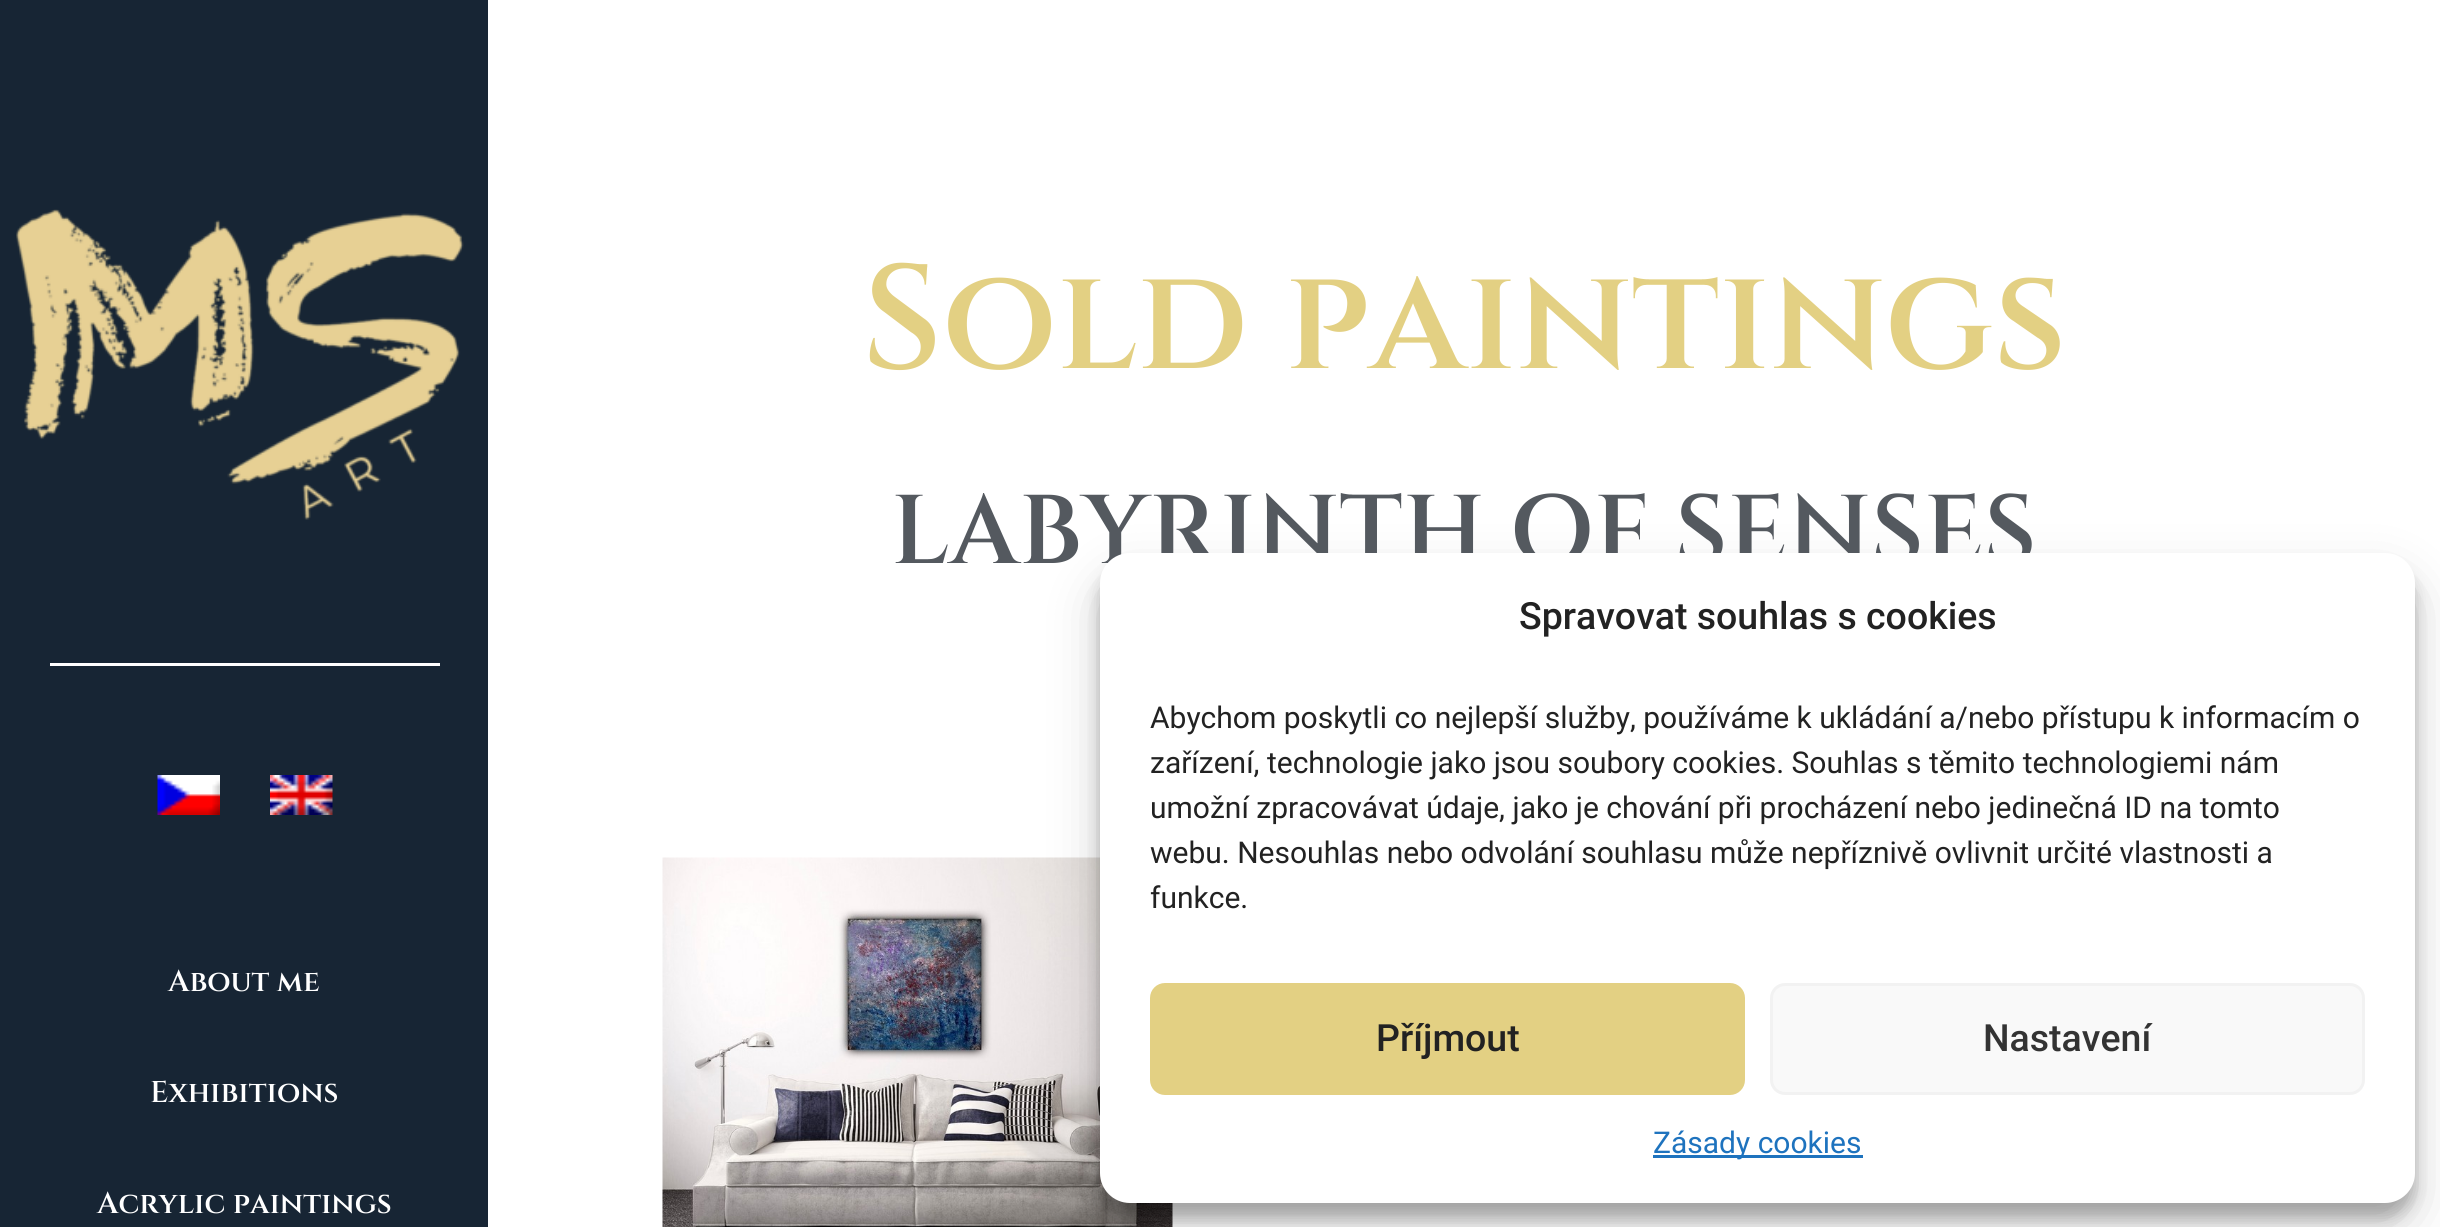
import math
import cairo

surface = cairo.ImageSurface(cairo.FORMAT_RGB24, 2440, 1227)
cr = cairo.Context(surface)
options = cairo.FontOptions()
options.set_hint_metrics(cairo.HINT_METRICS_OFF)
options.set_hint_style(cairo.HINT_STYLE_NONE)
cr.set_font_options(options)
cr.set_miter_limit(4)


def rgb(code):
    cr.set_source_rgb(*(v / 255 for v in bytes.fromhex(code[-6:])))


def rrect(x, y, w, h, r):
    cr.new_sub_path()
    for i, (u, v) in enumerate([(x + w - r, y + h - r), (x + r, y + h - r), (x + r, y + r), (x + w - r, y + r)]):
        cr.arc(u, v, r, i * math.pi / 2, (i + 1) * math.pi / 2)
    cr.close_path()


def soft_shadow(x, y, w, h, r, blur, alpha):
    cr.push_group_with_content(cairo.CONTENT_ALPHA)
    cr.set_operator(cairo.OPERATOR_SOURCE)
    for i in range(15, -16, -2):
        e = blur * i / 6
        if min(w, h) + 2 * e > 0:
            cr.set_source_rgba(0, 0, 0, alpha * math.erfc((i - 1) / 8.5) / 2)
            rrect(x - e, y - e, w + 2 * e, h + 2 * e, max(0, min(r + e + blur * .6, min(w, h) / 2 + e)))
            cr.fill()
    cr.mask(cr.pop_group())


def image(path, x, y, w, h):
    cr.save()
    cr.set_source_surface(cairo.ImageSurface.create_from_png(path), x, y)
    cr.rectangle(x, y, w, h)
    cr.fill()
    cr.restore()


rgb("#ffffff")
cr.paint()
image("img/1.png", 662, 857, 511, 370)
rgb("#172534")
cr.rectangle(0, 0, 488, 1227)
cr.fill()
image("img/2.png", 16, 209, 448, 311)
rgb("#ffffff")
cr.rectangle(50, 663, 390, 3)
cr.fill()
image("img/3.png", 157, 775, 63, 40)
image("img/4.png", 270, 775, 63, 40)
rgb("#000000")
soft_shadow(1100, 568, 1315, 650, 30, 7.5, 0.23)
soft_shadow(1100, 578, 1315, 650, 30, 25, 0.19)
cr.select_font_face("Cinzel SemiBold")
cr.set_font_size(147.5)
rgb("#e3d083")
cr.move_to(862, 368)
cr.show_text("Sold paintings")
cr.set_font_size(97.5)
rgb("#54595f")
cr.move_to(891, 563)
cr.show_text("LABYRINTH OF SENSES")
cr.set_font_size(30)
rgb("#ffffff")
for x, y, s in [
    (168, 991, "About me"),
    (150, 1102, "Exhibitions"),
    (97, 1213, "Acrylic paintings"),
]:
    cr.move_to(x, y)
    cr.show_text(s)
rrect(1100, 553, 1315, 650, 30)
cr.fill()
cr.select_font_face("Roboto Medium")
cr.set_font_size(37.5)
rgb("#222222")
cr.move_to(1519, 629)
cr.show_text("Spravovat souhlas s cookies")
cr.select_font_face("Roboto")
cr.set_font_size(30)
for x, y, s in [
    (1150, 728, "Abychom poskytli co nejlepší služby, používáme k ukládání a/nebo přístupu k informacím o"),
    (1150, 773, "zařízení, technologie jako jsou soubory cookies. Souhlas s těmito technologiemi nám"),
    (1150, 818, "umožní zpracovávat údaje, jako je chování při procházení nebo jedinečná ID na tomto"),
    (1150, 863, "webu. Nesouhlas nebo odvolání souhlasu může nepříznivě ovlivnit určité vlastnosti a"),
    (1150, 908, "funkce."),
]:
    cr.move_to(x, y)
    cr.show_text(s)
rgb("#e3d083")
rrect(1151.5, 984.5, 592, 109, 13.5)
cr.fill_preserve()
cr.set_line_width(3)
cr.stroke()
cr.select_font_face("Roboto Medium")
cr.set_font_size(37.5)
rgb("#222222")
cr.move_to(1376, 1051)
cr.show_text("Příjmout")
rgb("#f9f9f9")
rrect(1771.5, 984.5, 592, 109, 13.5)
cr.fill_preserve()
rgb("#f2f2f2")
cr.stroke()
rgb("#333333")
cr.move_to(1983, 1051)
cr.show_text("Nastavení")
rgb("#1e73be")
cr.rectangle(1653, 1155, 210, 3)
cr.fill()
cr.select_font_face("Roboto")
cr.set_font_size(30)
cr.move_to(1653, 1153)
cr.show_text("Zásady cookies")
surface.write_to_png("page.png")
